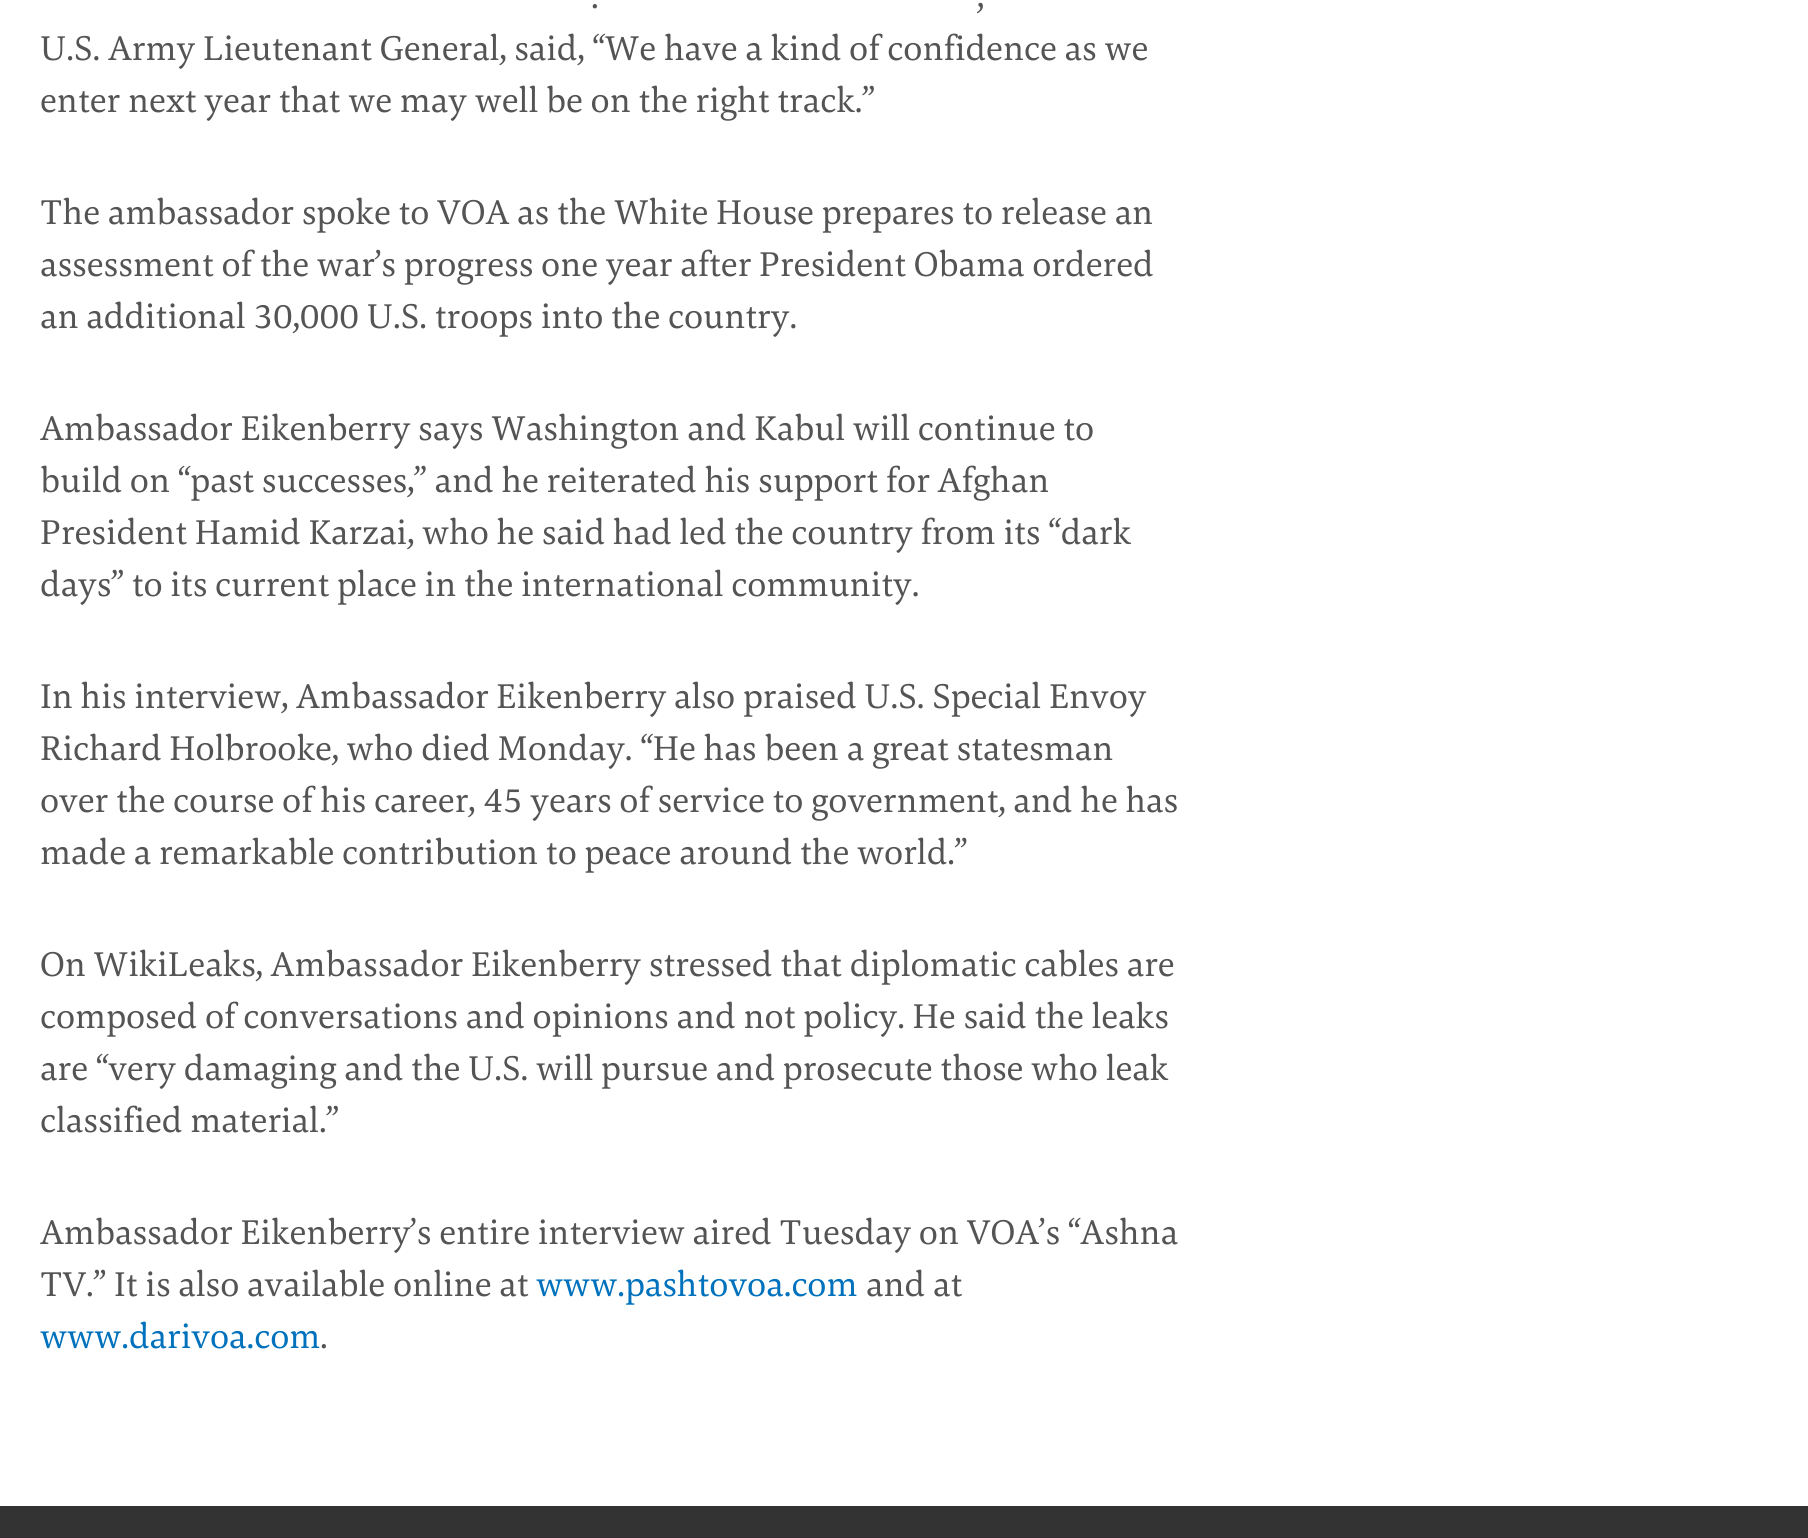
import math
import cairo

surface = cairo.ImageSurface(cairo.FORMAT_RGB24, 1808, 1538)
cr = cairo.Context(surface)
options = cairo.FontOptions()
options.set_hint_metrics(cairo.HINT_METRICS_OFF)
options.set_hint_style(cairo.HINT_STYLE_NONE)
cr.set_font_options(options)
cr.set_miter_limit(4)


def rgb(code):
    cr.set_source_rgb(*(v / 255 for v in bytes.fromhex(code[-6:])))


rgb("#ffffff")
cr.paint()
rgb("#333333")
cr.rectangle(0, 1506, 1808, 32)
cr.fill()
cr.select_font_face("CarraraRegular")
cr.set_font_size(36)
rgb("#545454")
for x, y, s in [
    (591, 8, "."),
    (977, 8, ","),
    (40, 60, "U.S. Army Lieutenant General, said, “We have a kind of confidence as we"),
    (40, 112, "enter next year that we may well be on the right track.”"),
    (40, 224, "The ambassador spoke to VOA as the White House prepares to release an"),
    (40, 276, "assessment of the war’s progress one year after President Obama ordered"),
    (40, 328, "an additional 30,000 U.S. troops into the country."),
    (40, 440, "Ambassador Eikenberry says Washington and Kabul will continue to"),
    (40, 492, "build on “past successes,” and he reiterated his support for Afghan"),
    (40, 544, "President Hamid Karzai, who he said had led the country from its “dark"),
    (40, 596, "days” to its current place in the international community."),
    (40, 708, "In his interview, Ambassador Eikenberry also praised U.S. Special Envoy"),
    (40, 760, "Richard Holbrooke, who died Monday. “He has been a great statesman"),
    (40, 812, "over the course of his career, 45 years of service to government, and he has"),
    (40, 864, "made a remarkable contribution to peace around the world.”"),
    (40, 976, "On WikiLeaks, Ambassador Eikenberry stressed that diplomatic cables are"),
    (40, 1028, "composed of conversations and opinions and not policy. He said the leaks"),
    (40, 1080, "are “very damaging and the U.S. will pursue and prosecute those who leak"),
    (40, 1132, "classified material.”"),
    (40, 1244, "Ambassador Eikenberry’s entire interview aired Tuesday on VOA’s “Ashna"),
    (40, 1296, "TV.” It is also available online at"),
]:
    cr.move_to(x, y)
    cr.show_text(s)
rgb("#0071bc")
cr.move_to(536, 1296)
cr.show_text("www.pashtovoa.com")
rgb("#545454")
cr.move_to(866, 1296)
cr.show_text("and at")
rgb("#0071bc")
cr.move_to(40, 1348)
cr.show_text("www.darivoa.com")
rgb("#545454")
cr.move_to(320, 1348)
cr.show_text(".")
surface.write_to_png("page.png")
